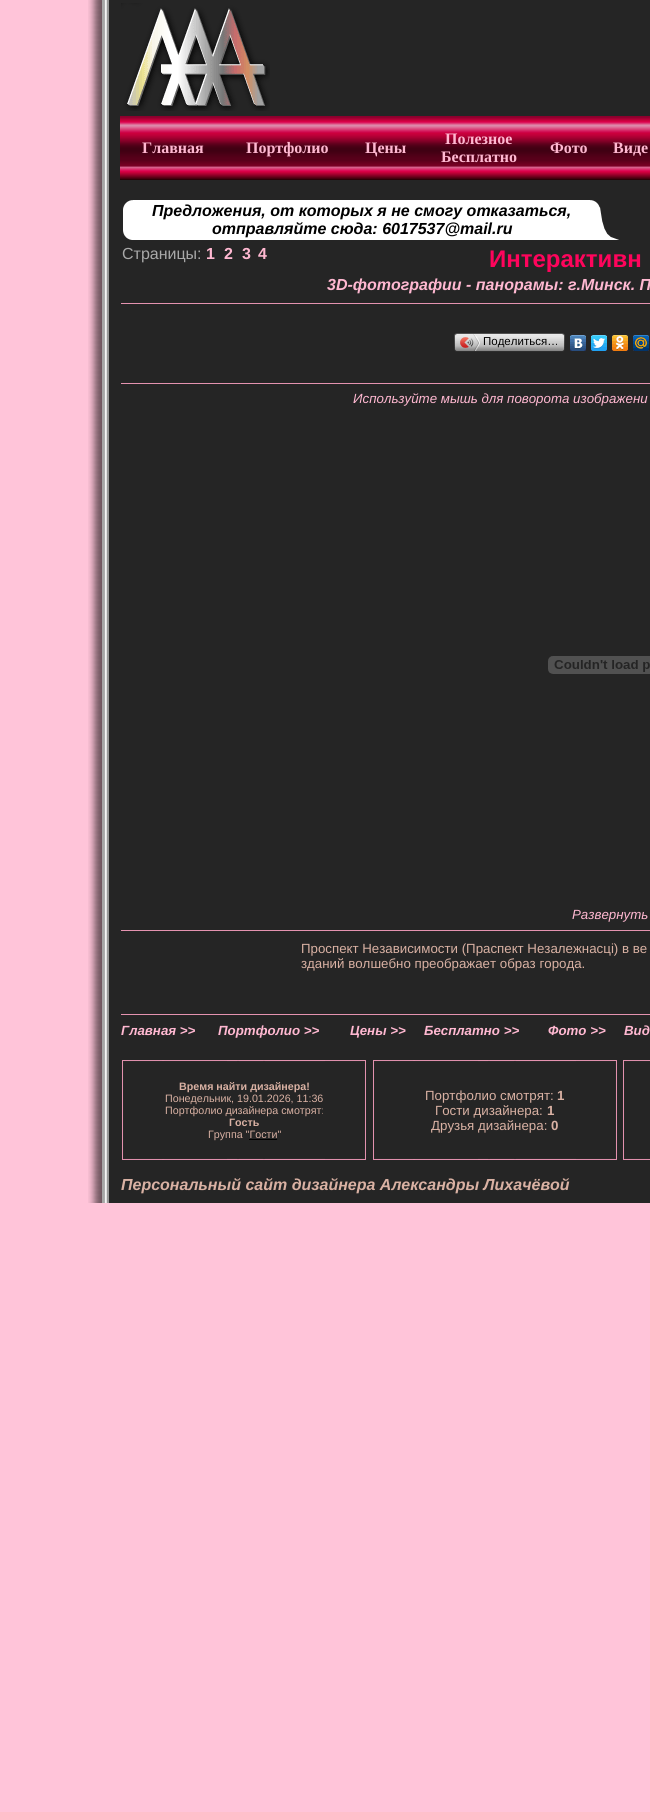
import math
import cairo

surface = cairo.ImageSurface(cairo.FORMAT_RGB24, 650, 1812)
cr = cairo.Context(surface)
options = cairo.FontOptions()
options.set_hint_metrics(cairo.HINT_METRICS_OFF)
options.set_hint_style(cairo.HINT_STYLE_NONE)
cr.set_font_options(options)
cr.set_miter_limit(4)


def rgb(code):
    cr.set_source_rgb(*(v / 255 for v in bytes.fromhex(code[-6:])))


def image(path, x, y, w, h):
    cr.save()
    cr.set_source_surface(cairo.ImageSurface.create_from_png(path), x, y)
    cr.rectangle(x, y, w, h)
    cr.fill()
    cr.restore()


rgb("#ffc4d9")
cr.paint()
image("img/1.png", 88, 0, 562, 1203)
image("img/2.png", 121, 3, 149, 108)
image("img/3.png", 120, 116, 530, 64)
image("img/4.png", 123, 200, 12, 40)
rgb("#ffffff")
cr.rectangle(135, 200, 454, 40)
cr.fill()
image("img/5.png", 589, 200, 30, 40)
rgb("#e593b0")
cr.rectangle(121, 303, 529, 1)
cr.fill()
image("img/6.png", 457, 333, 105, 19)
image("img/7.png", 454, 333, 3, 19)
image("img/8.png", 460, 334, 20, 17)
image("img/9.png", 562, 333, 3, 19)
image("img/10.png", 570, 335, 16, 16)
image("img/11.png", 591, 335, 16, 16)
image("img/12.png", 612, 335, 16, 16)
image("img/13.png", 633, 335, 16, 16)
cr.rectangle(121, 383, 529, 1)
cr.fill()
image("img/14.png", 548, 656, 102, 18)
cr.rectangle(121, 930, 529, 1)
cr.fill()
cr.rectangle(121, 1014, 529, 1)
cr.fill()
image("img/15.png", 122, 1060, 244, 100)
image("img/15.png", 373, 1060, 244, 100)
image("img/16.png", 623, 1060, 27, 100)
cr.select_font_face("Liberation Serif", cairo.FONT_SLANT_NORMAL, cairo.FONT_WEIGHT_BOLD)
cr.set_font_size(16)
rgb("#ffb8d1")
for x, y, s in [
    (142, 153, "Главная"),
    (246, 153, "Портфолио"),
    (365, 153, "Цены"),
    (445, 144, "Полезное"),
    (441, 162, "Бесплатно"),
    (550, 153, "Фото"),
    (613, 153, "Виде"),
]:
    cr.move_to(x, y)
    cr.show_text(s)
cr.select_font_face("Liberation Sans", cairo.FONT_SLANT_ITALIC, cairo.FONT_WEIGHT_BOLD)
rgb("#000000")
cr.move_to(152, 216)
cr.show_text("Предложения, от которых я не смогу отказаться,")
cr.move_to(212, 234)
cr.show_text("отправляйте сюда: 6017537@mail.ru")
cr.select_font_face("Liberation Sans")
rgb("#a9a9a9")
cr.move_to(122, 259)
cr.show_text("Страницы:")
cr.select_font_face("Liberation Sans", cairo.FONT_SLANT_NORMAL, cairo.FONT_WEIGHT_BOLD)
rgb("#ffb8d1")
for x, y, s in [
    (206, 259, "1"),
    (224, 259, "2"),
    (242, 259, "3"),
    (258, 259, "4"),
]:
    cr.move_to(x, y)
    cr.show_text(s)
cr.set_font_size(24)
rgb("#ff045c")
cr.move_to(489, 267)
cr.show_text("Интерактивн")
cr.select_font_face("Liberation Sans", cairo.FONT_SLANT_ITALIC, cairo.FONT_WEIGHT_BOLD)
cr.set_font_size(16)
rgb("#ffb8d1")
cr.move_to(327, 290)
cr.show_text("3D-фотографии - панорамы: г.Минск. П")
cr.select_font_face("Liberation Sans")
cr.set_font_size(11.5)
rgb("#000000")
cr.move_to(483, 345)
cr.show_text("Поделиться…")
cr.select_font_face("Liberation Sans", cairo.FONT_SLANT_ITALIC)
cr.set_font_size(13.3)
rgb("#ffb8d1")
cr.move_to(353, 403)
cr.show_text("Используйте мышь для поворота изображени")
cr.move_to(572, 919)
cr.show_text("Развернуть")
cr.select_font_face("Liberation Sans")
rgb("#d9b1a3")
cr.move_to(301, 953)
cr.show_text("Проспект Независимости (Праспект Незалежнасці) в ве")
cr.move_to(301, 968)
cr.show_text("зданий волшебно преображает образ города.")
cr.select_font_face("Liberation Sans", cairo.FONT_SLANT_ITALIC, cairo.FONT_WEIGHT_BOLD)
rgb("#ffb8d1")
for x, y, s in [
    (121, 1035, "Главная >>"),
    (218, 1035, "Портфолио >>"),
    (350, 1035, "Цены >>"),
    (424, 1035, "Бесплатно >>"),
    (548, 1035, "Фото >>"),
    (624, 1035, "Вид"),
]:
    cr.move_to(x, y)
    cr.show_text(s)
cr.select_font_face("Liberation Sans", cairo.FONT_SLANT_NORMAL, cairo.FONT_WEIGHT_BOLD)
cr.set_font_size(10.7)
rgb("#d9b1a3")
cr.move_to(179, 1090)
cr.show_text("Время найти дизайнера!")
cr.select_font_face("Liberation Sans")
cr.move_to(165, 1102)
cr.show_text("Понедельник, 19.01.2026, 11:36")
cr.move_to(165, 1114)
cr.show_text("Портфолио дизайнера смотрят:")
cr.select_font_face("Liberation Sans", cairo.FONT_SLANT_NORMAL, cairo.FONT_WEIGHT_BOLD)
cr.move_to(229, 1126)
cr.show_text("Гость")
cr.select_font_face("Liberation Sans")
cr.move_to(208, 1138)
cr.show_text("Группа \"Гости\"")
rgb("#000000")
cr.rectangle(249, 1139, 28, 1)
cr.fill()
cr.set_font_size(13.3)
rgb("#d9b1a3")
cr.move_to(425, 1100)
cr.show_text("Портфолио смотрят:")
cr.select_font_face("Liberation Sans", cairo.FONT_SLANT_NORMAL, cairo.FONT_WEIGHT_BOLD)
cr.move_to(557, 1100)
cr.show_text("1")
cr.select_font_face("Liberation Sans")
cr.move_to(435, 1115)
cr.show_text("Гости дизайнера:")
cr.select_font_face("Liberation Sans", cairo.FONT_SLANT_NORMAL, cairo.FONT_WEIGHT_BOLD)
cr.move_to(547, 1115)
cr.show_text("1")
cr.select_font_face("Liberation Sans")
cr.move_to(431, 1130)
cr.show_text("Друзья дизайнера:")
cr.select_font_face("Liberation Sans", cairo.FONT_SLANT_NORMAL, cairo.FONT_WEIGHT_BOLD)
cr.move_to(551, 1130)
cr.show_text("0")
cr.select_font_face("Liberation Sans", cairo.FONT_SLANT_ITALIC, cairo.FONT_WEIGHT_BOLD)
cr.set_font_size(16)
cr.move_to(121, 1190)
cr.show_text("Персональный сайт дизайнера Александры Лихачёвой")
surface.write_to_png("page.png")
